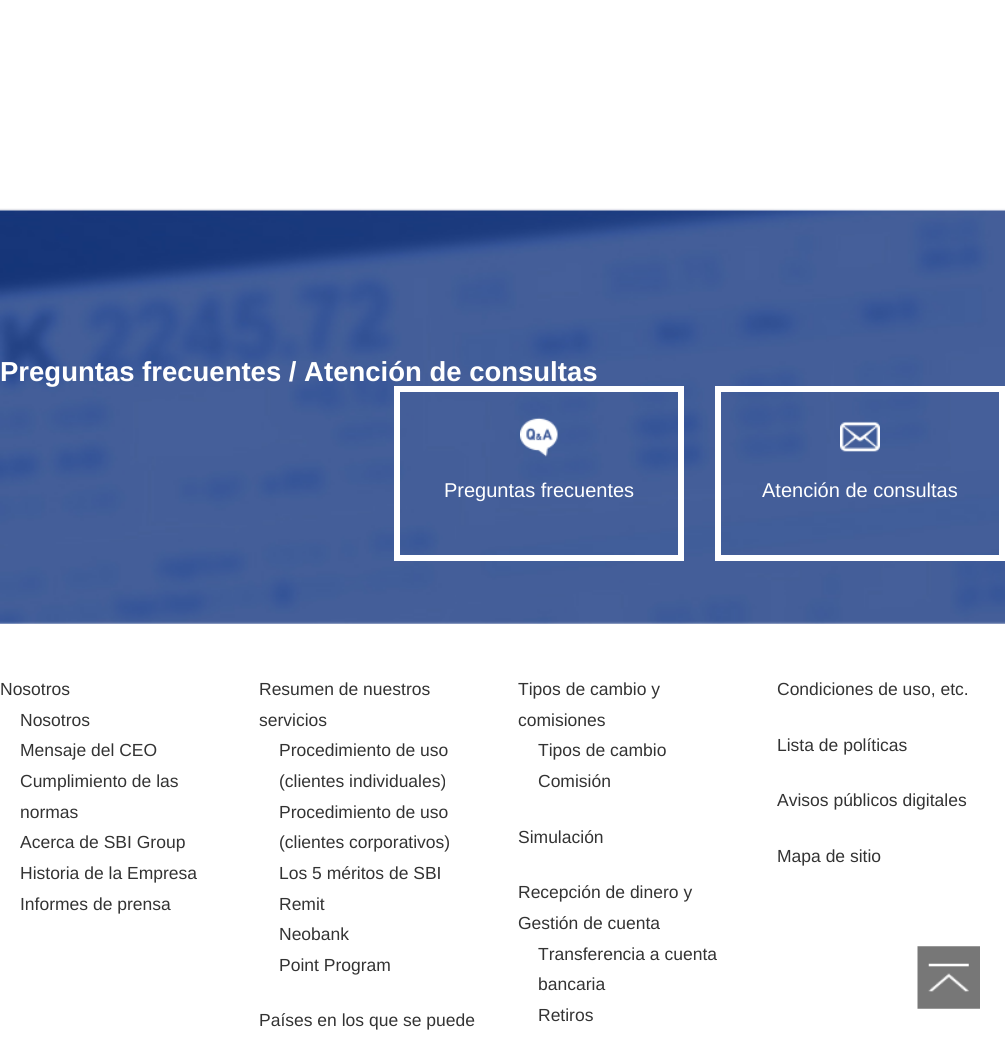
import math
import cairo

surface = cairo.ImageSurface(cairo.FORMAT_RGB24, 1005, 1049)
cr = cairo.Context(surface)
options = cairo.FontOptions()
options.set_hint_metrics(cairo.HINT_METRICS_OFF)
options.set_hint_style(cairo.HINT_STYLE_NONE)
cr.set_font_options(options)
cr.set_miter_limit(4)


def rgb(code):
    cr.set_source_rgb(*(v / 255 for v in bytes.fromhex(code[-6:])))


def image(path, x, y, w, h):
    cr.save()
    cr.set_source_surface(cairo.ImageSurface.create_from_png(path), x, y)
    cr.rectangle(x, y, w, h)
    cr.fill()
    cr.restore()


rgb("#ffffff")
cr.paint()
image("img/1.png", 0, 208, 1005, 416)
cr.rectangle(397, 389, 284, 169)
rgb("#ffffff")
cr.set_line_width(6)
cr.stroke()
image("img/2.png", 520, 417, 38, 40)
cr.rectangle(718, 389, 284, 169)
cr.stroke()
image("img/3.png", 840, 421, 40, 31)
image("img/4.png", 917, 946, 63, 63)
cr.select_font_face("Liberation Sans", cairo.FONT_SLANT_NORMAL, cairo.FONT_WEIGHT_BOLD)
cr.set_font_size(27.5)
cr.move_to(0, 381)
cr.show_text("Preguntas frecuentes / Atención de consultas")
cr.select_font_face("Liberation Sans")
cr.set_font_size(20)
cr.move_to(444, 497)
cr.show_text("Preguntas frecuentes")
cr.move_to(762, 497)
cr.show_text("Atención de consultas")
cr.set_font_size(17.5)
rgb("#333333")
for x, y, s in [
    (0, 695, "Nosotros"),
    (20, 726, "Nosotros"),
    (20, 756, "Mensaje del CEO"),
    (20, 787, "Cumplimiento de las"),
    (20, 818, "normas"),
    (20, 848, "Acerca de SBI Group"),
    (20, 879, "Historia de la Empresa"),
    (20, 910, "Informes de prensa"),
    (259, 695, "Resumen de nuestros"),
    (259, 726, "servicios"),
    (279, 756, "Procedimiento de uso"),
    (279, 787, "(clientes individuales)"),
    (279, 818, "Procedimiento de uso"),
    (279, 848, "(clientes corporativos)"),
    (279, 879, "Los 5 méritos de SBI"),
    (279, 910, "Remit"),
    (279, 940, "Neobank"),
    (279, 971, "Point Program"),
    (259, 1026, "Países en los que se puede"),
    (518, 695, "Tipos de cambio y"),
    (518, 726, "comisiones"),
    (538, 756, "Tipos de cambio"),
    (538, 787, "Comisión"),
    (518, 843, "Simulación"),
    (518, 898, "Recepción de dinero y"),
    (518, 929, "Gestión de cuenta"),
    (538, 960, "Transferencia a cuenta"),
    (538, 990, "bancaria"),
    (538, 1021, "Retiros"),
    (777, 695, "Condiciones de uso, etc."),
    (777, 751, "Lista de políticas"),
    (777, 806, "Avisos públicos digitales"),
    (777, 862, "Mapa de sitio"),
]:
    cr.move_to(x, y)
    cr.show_text(s)
surface.write_to_png("page.png")
